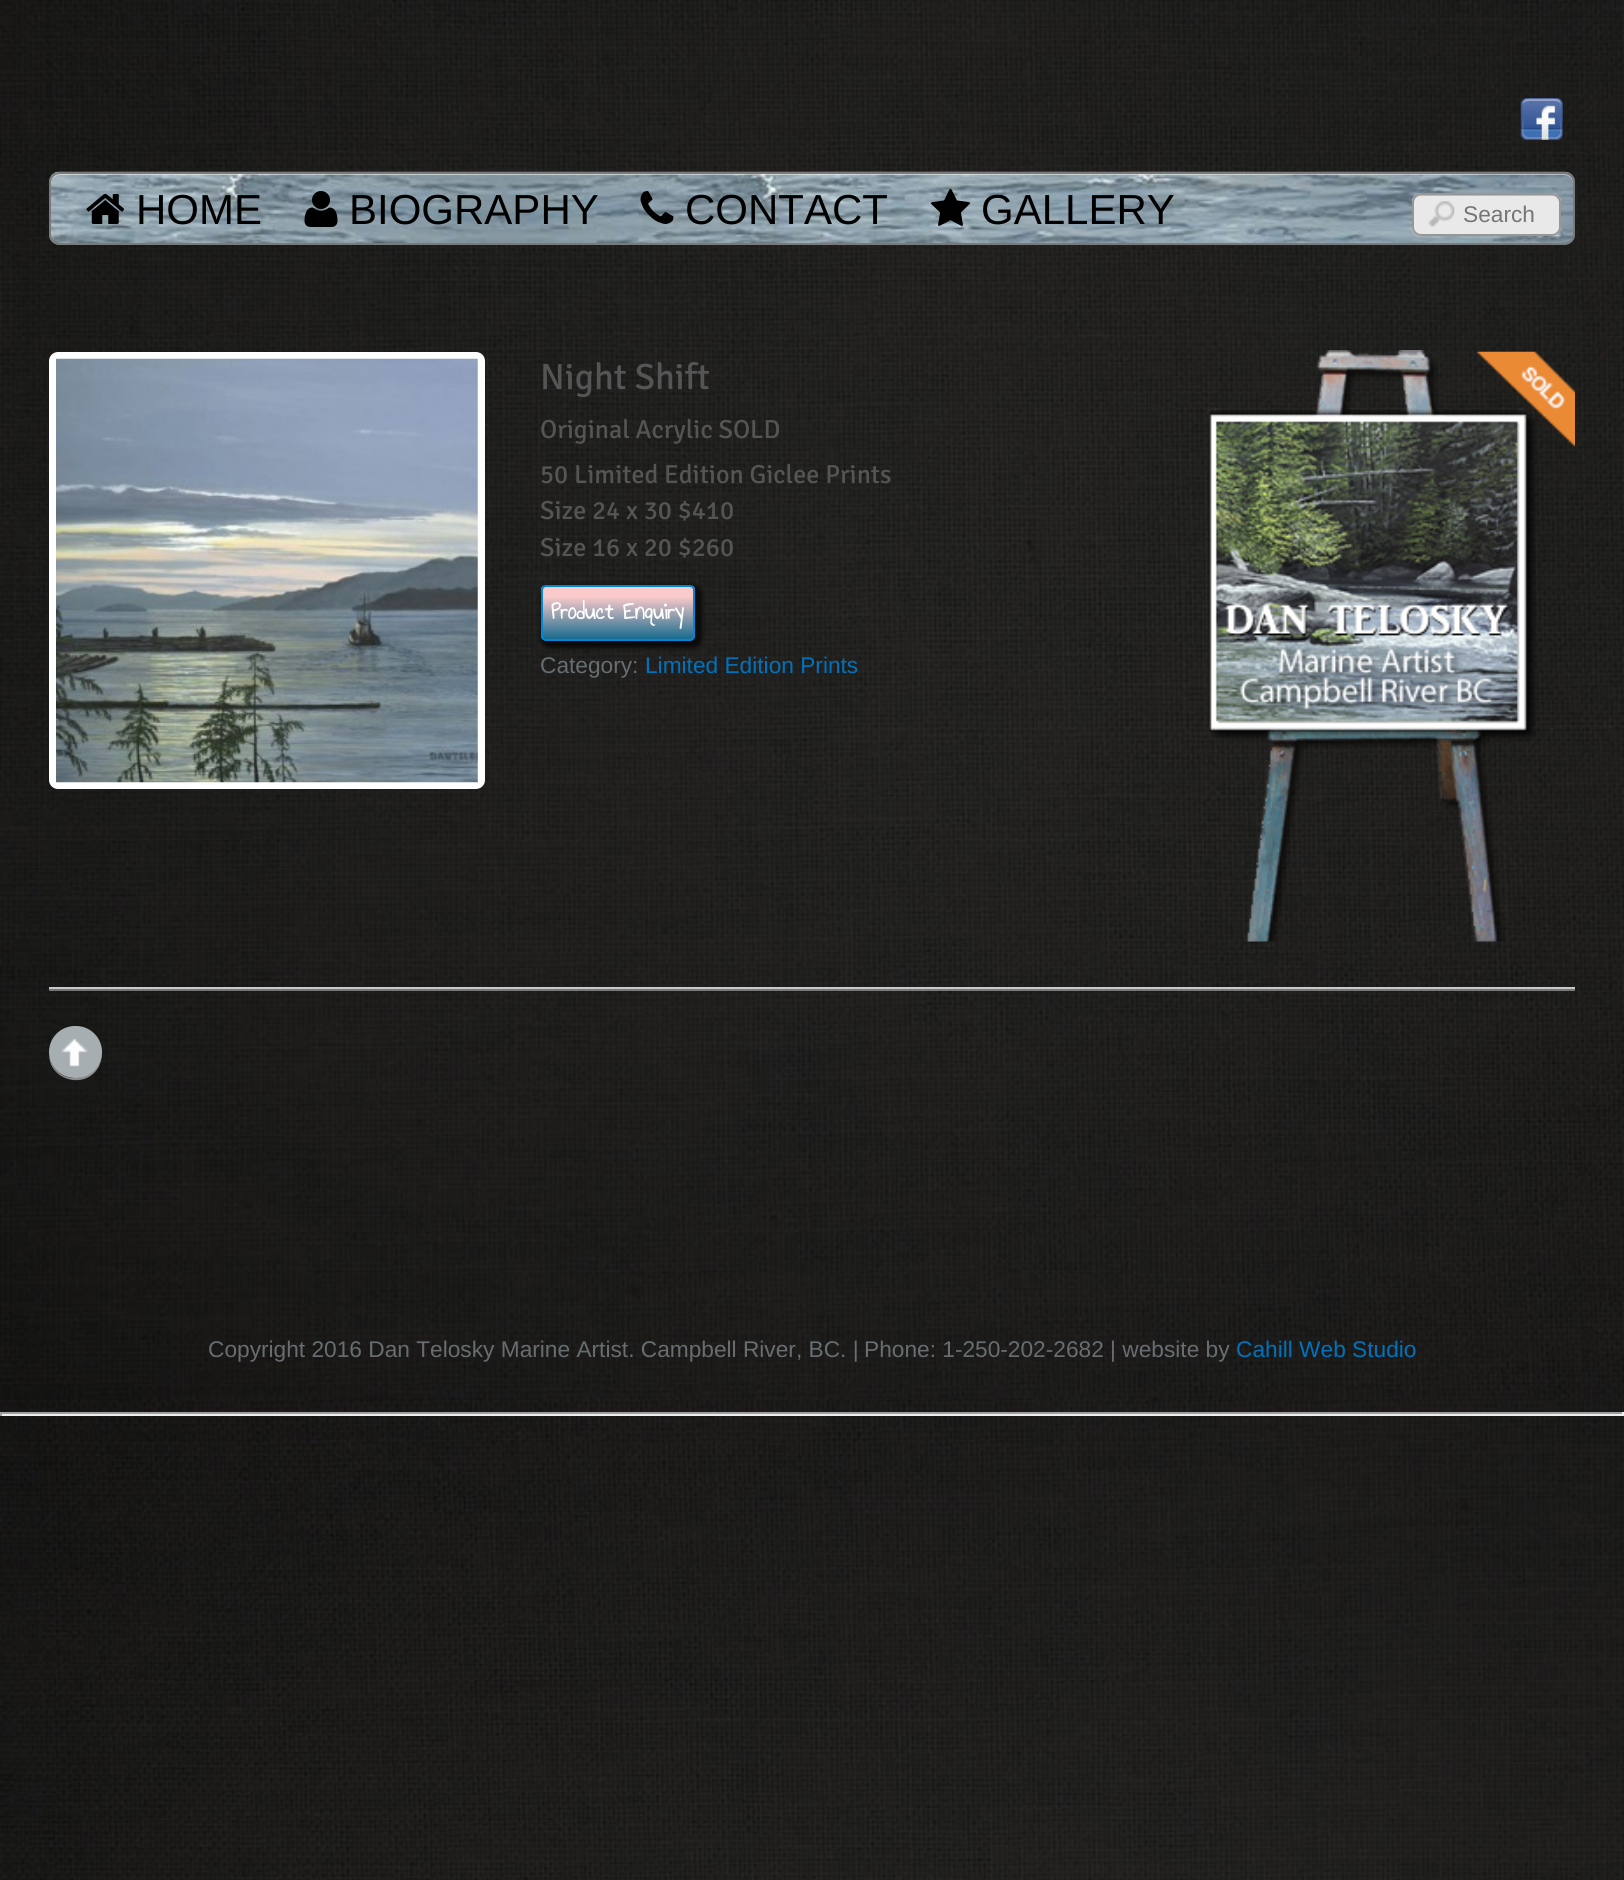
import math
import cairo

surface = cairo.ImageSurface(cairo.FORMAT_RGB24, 1624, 1880)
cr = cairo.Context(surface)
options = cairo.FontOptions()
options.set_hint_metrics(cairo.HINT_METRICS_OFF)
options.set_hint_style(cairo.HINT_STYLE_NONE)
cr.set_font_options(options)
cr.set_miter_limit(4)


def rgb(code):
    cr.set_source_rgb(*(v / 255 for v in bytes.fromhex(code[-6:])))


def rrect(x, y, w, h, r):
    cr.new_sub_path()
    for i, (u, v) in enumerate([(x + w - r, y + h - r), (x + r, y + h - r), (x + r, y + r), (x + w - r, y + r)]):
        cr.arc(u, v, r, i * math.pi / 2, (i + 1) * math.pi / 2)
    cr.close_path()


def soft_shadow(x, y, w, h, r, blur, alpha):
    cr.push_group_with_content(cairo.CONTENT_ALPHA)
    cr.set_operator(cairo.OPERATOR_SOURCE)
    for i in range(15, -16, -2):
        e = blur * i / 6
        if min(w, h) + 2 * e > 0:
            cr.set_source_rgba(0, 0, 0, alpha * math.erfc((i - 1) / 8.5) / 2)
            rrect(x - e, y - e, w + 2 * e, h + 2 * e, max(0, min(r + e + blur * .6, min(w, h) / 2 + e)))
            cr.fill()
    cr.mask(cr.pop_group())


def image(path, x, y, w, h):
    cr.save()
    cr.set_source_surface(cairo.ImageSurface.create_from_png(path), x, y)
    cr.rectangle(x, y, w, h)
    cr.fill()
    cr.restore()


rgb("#ffffff")
cr.paint()
image("img/1.png", 0, 0, 1624, 1880)
image("img/2.png", 1520, 98, 43, 42)
image("img/3.png", 49, 171, 1526, 74)
cr.set_source_rgba(1, 1, 1, 0.5)
cr.new_path()
cr.move_to(60, 175)
cr.line_to(1564, 175)
cr.curve_to(1569, 175, 1573, 179, 1573, 184)
cr.line_to(1573, 182)
cr.curve_to(1573, 177, 1569, 173, 1564, 173)
cr.line_to(60, 173)
cr.curve_to(55, 173, 51, 177, 51, 182)
cr.line_to(51, 184)
cr.curve_to(51, 179, 55, 175, 60, 175)
cr.close_path()
cr.fill()
rrect(50, 173, 1524, 71, 10)
rgb("#7a7a7a")
cr.stroke()
image("img/4.png", 86, 193, 39, 31)
image("img/5.png", 304, 191, 34, 36)
image("img/6.png", 640, 191, 34, 33)
image("img/7.png", 931, 188, 39, 38)
cr.set_source_rgba(1, 1, 1, 0.1)
cr.new_path()
cr.move_to(1412, 201)
cr.line_to(1412, 229)
cr.curve_to(1412, 234, 1416, 238, 1421, 238)
cr.line_to(1552, 238)
cr.curve_to(1557, 238, 1561, 234, 1561, 229)
cr.line_to(1561, 228)
cr.curve_to(1561, 241, 1535, 236, 1530, 236)
cr.line_to(1421, 236)
cr.curve_to(1413, 236, 1412, 229, 1412, 223)
cr.close_path()
cr.fill()
rgb("#eae9e9")
rrect(1412, 193, 149, 43, 9)
cr.fill()
image("img/8.png", 1428, 201, 27, 27)
rgb("#bbbaba")
cr.new_path()
cr.move_to(1421, 196)
cr.line_to(1552, 196)
cr.curve_to(1556, 196, 1559, 199, 1559, 203)
cr.line_to(1559, 201)
cr.curve_to(1559, 197, 1556, 194, 1552, 194)
cr.line_to(1421, 194)
cr.curve_to(1417, 194, 1414, 197, 1414, 201)
cr.line_to(1414, 203)
cr.curve_to(1414, 199, 1417, 196, 1421, 196)
cr.close_path()
cr.fill()
rrect(1413, 194, 147, 41, 8)
rgb("#979797")
cr.stroke()
image("img/11.png", 1477, 351, 98, 96)
image("img/9.png", 1206, 350, 330, 592)
rgb("#ffffff")
rrect(49, 352, 436, 437, 9)
cr.fill()
image("img/10.png", 56, 358, 422, 425)
rgb("#0a0a0a")
soft_shadow(541, 585, 161, 63, 9, 2, 1)
cr.save()
rrect(541, 585, 154, 56, 5)
cr.clip()
gradient = cairo.LinearGradient(543, 586, 543, 639)
gradient.add_color_stop_rgba(0.2, 0.984, 0.792, 0.792, 1)
gradient.add_color_stop_rgba(1, 0.094, 0.42, 0.557, 1)
cr.set_source(gradient)
cr.rectangle(541, 586, 154, 53)
cr.fill()
cr.restore()
rrect(542, 586, 152, 54, 4)
rgb("#0286d8")
cr.stroke()
cr.set_source_rgba(1, 1, 1, 0.4)
cr.rectangle(49, 989, 1526, 2)
cr.fill()
rgb("#c8c9ca")
cr.rectangle(49, 987, 1526, 2)
cr.fill()
cr.set_source_rgba(1, 1, 1, 0.5)
cr.new_path()
cr.move_to(49, 1053)
cr.curve_to(48, 1082, 89, 1091, 100, 1064)
cr.curve_to(102, 1058, 103, 1051, 101, 1045)
cr.curve_to(107, 1070, 76, 1089, 57, 1071)
cr.curve_to(52, 1066, 49, 1059, 49, 1053)
cr.close_path()
cr.fill()
rgb("#a7aeb1")
rrect(49, 1026, 53, 52, 26)
cr.fill()
image("img/12.png", 61, 1038, 27, 29)
for x, y, w, h, color in [
    (0, 1412, 1624, 2, "#9f9f9f"),
    (1622, 1412, 2, 4, "#eeeeee"),
    (0, 1414, 1624, 2, "#eeeeee"),
    (0, 1412, 2, 4, "#9f9f9f"),
]:
    rgb(color)
    cr.rectangle(x, y, w, h)
    cr.fill()
cr.select_font_face("Liberation Sans")
cr.set_font_size(42)
rgb("#000000")
for x, y, s in [
    (136, 224, "HOME"),
    (349, 224, "BIOGRAPHY"),
    (685, 224, "CONTACT"),
    (981, 224, "GALLERY"),
]:
    cr.move_to(x, y)
    cr.show_text(s)
cr.set_font_size(22.7)
rgb("#757575")
cr.move_to(1463, 222)
cr.show_text("Search")
cr.select_font_face("Signika")
cr.set_font_size(36.5)
rgb("#555555")
cr.move_to(540, 389)
cr.show_text("Night Shift")
cr.set_font_size(26.1)
for x, y, s in [
    (540, 438, "Original Acrylic SOLD"),
    (540, 483, "50 Limited Edition Giclee Prints"),
    (540, 519, "Size 24 x 30 $410"),
    (540, 556, "Size 16 x 20 $260"),
]:
    cr.move_to(x, y)
    cr.show_text(s)
cr.select_font_face("Annie Use Your Telescope", cairo.FONT_SLANT_NORMAL, cairo.FONT_WEIGHT_BOLD)
cr.set_font_size(24.5)
rgb("#ffffff")
cr.move_to(551, 619)
cr.show_text("Product Enquiry")
cr.select_font_face("Liberation Sans")
cr.set_font_size(22.7)
rgb("#676d70")
cr.move_to(540, 673)
cr.show_text("Category:")
rgb("#0072bc")
cr.move_to(645, 673)
cr.show_text("Limited Edition Prints")
rgb("#676d70")
cr.move_to(208, 1357)
cr.show_text("Copyright 2016 Dan Telosky Marine Artist. Campbell River, BC. |")
cr.move_to(864, 1357)
cr.show_text("Phone: 1-250-202-2682 | website by")
rgb("#0072bc")
cr.move_to(1236, 1357)
cr.show_text("Cahill Web Studio")
surface.write_to_png("page.png")
